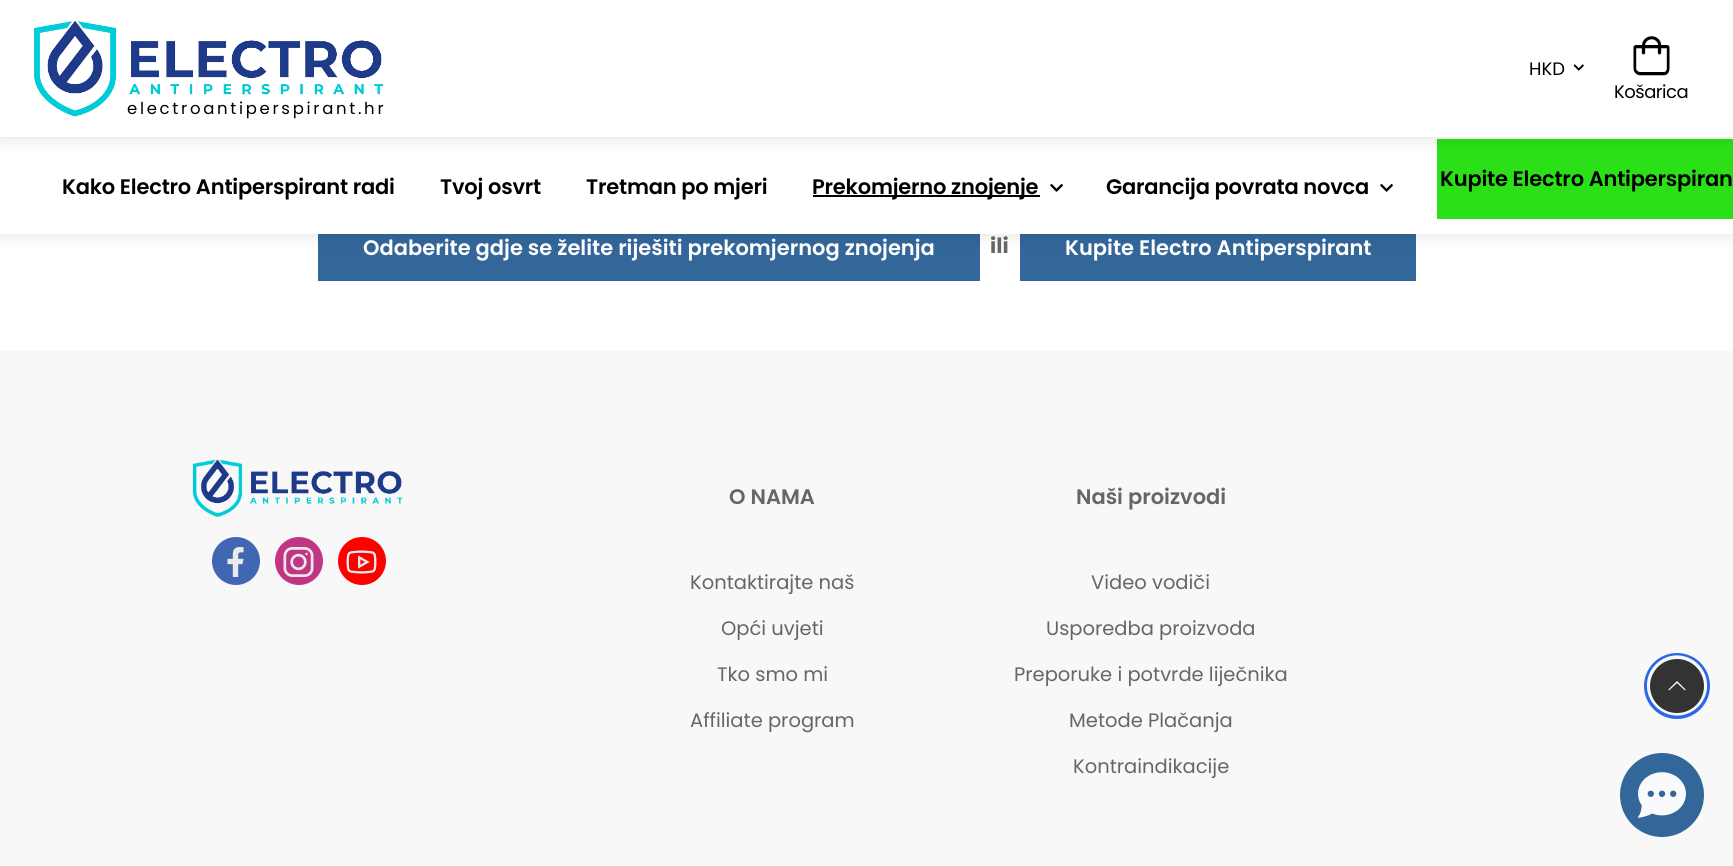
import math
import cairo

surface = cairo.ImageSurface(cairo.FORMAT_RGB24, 1733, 866)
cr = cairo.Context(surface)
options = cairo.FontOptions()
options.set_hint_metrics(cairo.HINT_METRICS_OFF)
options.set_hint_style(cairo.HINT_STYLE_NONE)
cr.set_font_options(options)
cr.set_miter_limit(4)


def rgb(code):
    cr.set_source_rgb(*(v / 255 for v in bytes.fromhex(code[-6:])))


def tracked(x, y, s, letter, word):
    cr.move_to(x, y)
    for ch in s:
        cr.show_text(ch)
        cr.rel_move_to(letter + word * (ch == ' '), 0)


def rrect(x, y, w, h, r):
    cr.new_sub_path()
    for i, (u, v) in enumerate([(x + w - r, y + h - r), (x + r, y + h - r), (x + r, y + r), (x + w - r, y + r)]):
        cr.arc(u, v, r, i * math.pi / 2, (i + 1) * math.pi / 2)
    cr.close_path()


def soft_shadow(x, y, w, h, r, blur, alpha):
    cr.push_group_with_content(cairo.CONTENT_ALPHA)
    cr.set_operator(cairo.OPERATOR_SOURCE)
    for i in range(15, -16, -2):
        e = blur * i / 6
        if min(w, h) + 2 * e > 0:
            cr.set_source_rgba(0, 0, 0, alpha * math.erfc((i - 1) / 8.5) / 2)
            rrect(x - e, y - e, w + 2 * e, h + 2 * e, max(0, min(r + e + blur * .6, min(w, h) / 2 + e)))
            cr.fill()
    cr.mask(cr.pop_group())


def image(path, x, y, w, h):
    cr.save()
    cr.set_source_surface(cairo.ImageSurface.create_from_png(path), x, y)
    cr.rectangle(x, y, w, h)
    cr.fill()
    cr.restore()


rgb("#ffffff")
cr.paint()
rgb("#336699")
cr.rectangle(318, 234, 662, 47)
cr.fill()
cr.rectangle(1020, 234, 396, 47)
cr.fill()
rgb("#000000")
soft_shadow(-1, 137, 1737, 99, 0, 7.5, 0.1)
rgb("#ffffff")
cr.rectangle(0, 139, 1733, 95)
cr.fill()
rgb("#2be016")
cr.rectangle(1437, 139, 296, 80)
cr.fill()
rgb("#000000")
soft_shadow(-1, -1, 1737, 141, 0, 7.5, 0.1)
rgb("#ffffff")
cr.rectangle(0, 0, 1733, 137)
cr.fill()
rgb("#eeeeee")
cr.rectangle(0, 137, 1733, 2)
cr.fill()
image("img/1.png", 1573, 64, 11, 7)
image("img/2.png", 1633, 36, 37, 40)
image("img/3.png", 34, 20, 350, 97)
rgb("#000000")
cr.rectangle(813, 195, 227, 2)
cr.fill()
image("img/4.png", 1050, 184, 13, 8)
image("img/4.png", 1380, 184, 13, 8)
rgb("#f8f8f8")
cr.rectangle(0, 351, 1733, 515)
cr.fill()
image("img/5.png", 192, 459, 211, 58)
rgb("#4267b2")
cr.arc(236, 561, 22.5, 0, 2 * math.pi)
cr.fill_preserve()
cr.set_line_width(3)
cr.stroke()
image("img/6.png", 227, 547, 17, 30)
rgb("#c13584")
cr.arc(299, 561, 22.5, 0, 2 * math.pi)
cr.fill_preserve()
cr.stroke()
image("img/7.png", 283, 547, 31, 30)
rgb("#ff0000")
cr.arc(362, 561, 22.5, 0, 2 * math.pi)
cr.fill_preserve()
cr.stroke()
image("img/8.png", 346, 550, 31, 24)
cr.save()
rrect(1644, 653, 66, 66, 33)
cr.clip()
cr.new_path()
cr.move_to(1677, 653.5)
cr.curve_to(1694.5, 653.5, 1709, 668, 1709, 685.5)
cr.curve_to(1709, 703, 1694.5, 717.5, 1677, 717.5)
cr.curve_to(1659.5, 717.5, 1645, 703, 1645, 685.5)
cr.curve_to(1645, 668, 1659.5, 653.5, 1677, 653.5)
rgb("#2c67e7")
cr.set_line_width(3.8)
cr.set_line_cap(cairo.LINE_CAP_ROUND)
cr.stroke()
cr.restore()
rgb("#333333")
cr.arc(1677, 686, 25.5, 0, 2 * math.pi)
cr.fill_preserve()
cr.stroke()
rgb("#ffffff")
cr.new_path()
cr.move_to(1677, 681)
cr.line_to(1668.5, 689.5)
cr.line_to(1669, 690.5)
cr.line_to(1677, 683)
cr.line_to(1685, 690.5)
cr.line_to(1685.5, 689.5)
cr.close_path()
cr.fill()
rgb("#336699")
cr.arc(1662, 795, 42, 0, 2 * math.pi)
cr.fill()
image("img/9.png", 1638, 772, 48, 46)
cr.select_font_face("Poppins")
cr.set_font_size(18)
rgb("#000000")
cr.move_to(1529, 75)
cr.show_text("HKD")
tracked(1614, 98, "Košarica", -0.5, 0)
cr.set_font_size(16.5)
tracked(127, 114, "electroantiperspirant.hr", 2.7, 0)
cr.select_font_face("Poppins SemiBold")
cr.set_font_size(21)
for x, y, s in [
    (62, 194, "Kako Electro Antiperspirant radi"),
    (440, 194, "Tvoj osvrt"),
    (586, 194, "Tretman po mjeri"),
    (812, 194, "Prekomjerno znojenje"),
    (1106, 194, "Garancija povrata novca"),
    (1440, 186, "Kupite Electro Antiperspiran"),
]:
    tracked(x, y, s, -0.2, 0)
rgb("#ffffff")
cr.move_to(363, 255)
cr.show_text("Odaberite gdje se želite riješiti prekomjernog znojenja")
cr.select_font_face("Poppins", cairo.FONT_SLANT_NORMAL, cairo.FONT_WEIGHT_BOLD)
rgb("#666666")
cr.move_to(990, 253)
cr.show_text("ili")
cr.select_font_face("Poppins SemiBold")
rgb("#ffffff")
cr.move_to(1065, 255)
cr.show_text("Kupite Electro Antiperspirant")
rgb("#666666")
cr.move_to(729, 504)
cr.show_text("O NAMA")
cr.select_font_face("Poppins")
cr.set_font_size(19.5)
for x, y, s in [
    (690, 589, "Kontaktirajte naš"),
    (721, 635, "Opći uvjeti"),
    (717, 681, "Tko smo mi"),
    (690, 727, "Affiliate program"),
]:
    cr.move_to(x, y)
    cr.show_text(s)
cr.select_font_face("Poppins SemiBold")
cr.set_font_size(21)
cr.move_to(1076, 504)
cr.show_text("Naši proizvodi")
cr.select_font_face("Poppins")
cr.set_font_size(19.5)
for x, y, s in [
    (1091, 589, "Video vodiči"),
    (1046, 635, "Usporedba proizvoda"),
    (1014, 681, "Preporuke i potvrde liječnika"),
    (1069, 727, "Metode Plačanja"),
    (1073, 773, "Kontraindikacije"),
]:
    cr.move_to(x, y)
    cr.show_text(s)
surface.write_to_png("page.png")
